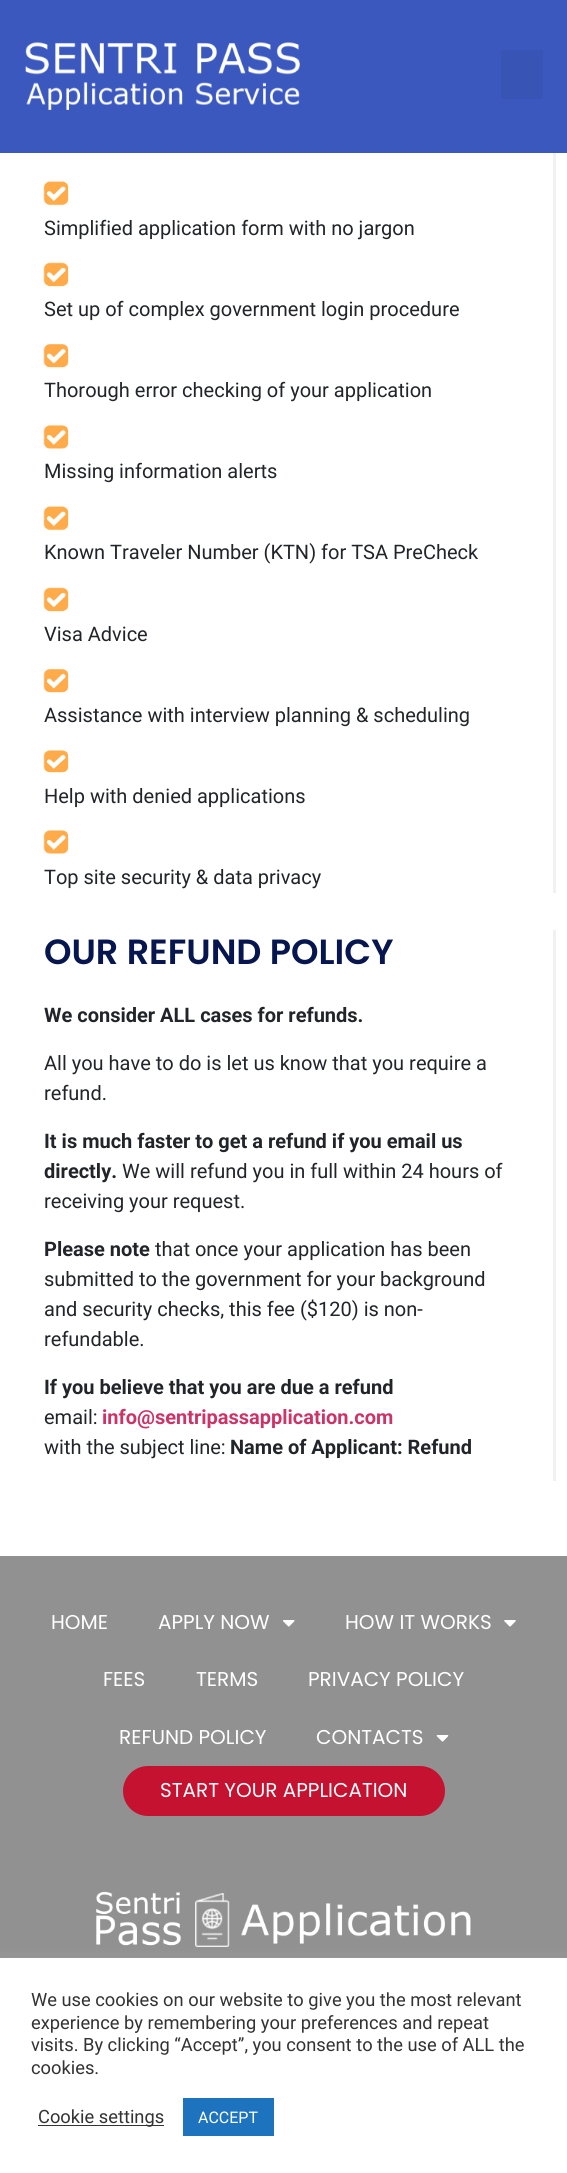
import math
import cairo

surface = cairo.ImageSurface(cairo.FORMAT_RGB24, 567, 2173)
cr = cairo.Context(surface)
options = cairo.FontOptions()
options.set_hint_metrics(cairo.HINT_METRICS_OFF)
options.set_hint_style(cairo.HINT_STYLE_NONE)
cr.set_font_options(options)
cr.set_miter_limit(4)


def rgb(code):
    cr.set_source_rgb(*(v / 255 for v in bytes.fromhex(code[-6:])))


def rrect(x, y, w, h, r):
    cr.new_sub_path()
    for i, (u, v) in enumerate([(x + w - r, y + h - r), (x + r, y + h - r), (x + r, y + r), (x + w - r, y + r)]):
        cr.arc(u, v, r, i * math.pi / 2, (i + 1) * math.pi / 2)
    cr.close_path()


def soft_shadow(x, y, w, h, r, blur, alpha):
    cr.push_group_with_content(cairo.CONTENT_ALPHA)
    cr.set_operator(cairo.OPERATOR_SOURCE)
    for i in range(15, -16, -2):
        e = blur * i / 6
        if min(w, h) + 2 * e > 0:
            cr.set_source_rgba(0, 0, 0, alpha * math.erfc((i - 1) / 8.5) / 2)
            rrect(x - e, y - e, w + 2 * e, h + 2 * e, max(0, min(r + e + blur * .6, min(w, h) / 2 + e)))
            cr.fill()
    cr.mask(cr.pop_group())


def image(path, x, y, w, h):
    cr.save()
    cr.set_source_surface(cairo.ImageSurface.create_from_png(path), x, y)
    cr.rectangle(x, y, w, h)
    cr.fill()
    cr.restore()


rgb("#ffffff")
cr.paint()
rgb("#3b58bf")
cr.rectangle(0, 0, 567, 153)
cr.fill()
image("img/1.png", 25, 42, 275, 68)
rgb("#3854b5")
cr.rectangle(501, 50, 42, 49)
cr.fill()
rgb("#f1f1f1")
cr.rectangle(553, 153, 3, 740)
cr.fill()
image("img/2.png", 43, 181, 26, 25)
image("img/3.png", 43, 262, 26, 25)
image("img/4.png", 43, 344, 26, 24)
image("img/5.png", 43, 425, 26, 24)
image("img/2.png", 43, 506, 26, 25)
image("img/3.png", 43, 587, 26, 25)
image("img/4.png", 43, 669, 26, 24)
image("img/6.png", 43, 750, 26, 23)
image("img/5.png", 43, 830, 26, 24)
cr.rectangle(553, 930, 3, 551)
cr.fill()
rgb("#919191")
cr.rectangle(0, 1556, 567, 402)
cr.fill()
image("img/7.png", 283, 1620, 12, 7)
image("img/8.png", 504, 1620, 12, 7)
image("img/9.png", 436, 1735, 13, 7)
rgb("#c41230")
rrect(123, 1766, 322, 50, 25)
cr.fill()
image("img/10.png", 96, 1891, 375, 56)
rgb("#acabab")
soft_shadow(0, 1956, 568, 217, 0, 6, 0.3)
for x, y, w, h, color in [
    (0, 1958, 567, 215, "#ffffff"),
    (38, 2125, 126, 1, "#333333"),
    (183, 2098, 91, 38, "#1e73be"),
]:
    rgb(color)
    cr.rectangle(x, y, w, h)
    cr.fill()
cr.select_font_face("Roboto")
cr.set_font_size(20)
rgb("#212529")
for x, y, s in [
    (44, 235, "Simplified application form with no jargon"),
    (44, 316, "Set up of complex government login procedure"),
    (44, 397, "Thorough error checking of your application"),
    (44, 478, "Missing information alerts"),
    (44, 559, "Known Traveler Number (KTN) for TSA PreCheck"),
    (44, 641, "Visa Advice"),
    (44, 722, "Assistance with interview planning & scheduling"),
    (44, 803, "Help with denied applications"),
    (44, 884, "Top site security & data privacy"),
]:
    cr.move_to(x, y)
    cr.show_text(s)
cr.select_font_face("Poppins SemiBold")
cr.set_font_size(35)
rgb("#07164f")
cr.move_to(44, 964)
cr.show_text("OUR REFUND POLICY")
cr.select_font_face("Roboto", cairo.FONT_SLANT_NORMAL, cairo.FONT_WEIGHT_BOLD)
cr.set_font_size(20)
rgb("#212529")
cr.move_to(44, 1022)
cr.show_text("We consider ALL cases for refunds.")
cr.select_font_face("Roboto")
cr.move_to(44, 1070)
cr.show_text("All you have to do is let us know that you require a")
cr.move_to(44, 1100)
cr.show_text("refund.")
cr.select_font_face("Roboto", cairo.FONT_SLANT_NORMAL, cairo.FONT_WEIGHT_BOLD)
cr.move_to(44, 1148)
cr.show_text("It is much faster to get a refund if you email us")
cr.move_to(44, 1178)
cr.show_text("directly.")
cr.select_font_face("Roboto")
cr.move_to(122, 1178)
cr.show_text("We will refund you in full within 24 hours of")
cr.move_to(44, 1208)
cr.show_text("receiving your request.")
cr.select_font_face("Roboto", cairo.FONT_SLANT_NORMAL, cairo.FONT_WEIGHT_BOLD)
cr.move_to(44, 1256)
cr.show_text("Please note")
cr.select_font_face("Roboto")
for x, y, s in [
    (155, 1256, "that once your application has been"),
    (44, 1286, "submitted to the government for your background"),
    (44, 1316, "and security checks, this fee ($120) is non-"),
    (44, 1346, "refundable."),
]:
    cr.move_to(x, y)
    cr.show_text(s)
cr.select_font_face("Roboto", cairo.FONT_SLANT_NORMAL, cairo.FONT_WEIGHT_BOLD)
cr.move_to(44, 1394)
cr.show_text("If you believe that you are due a refund")
cr.select_font_face("Roboto")
cr.move_to(44, 1424)
cr.show_text("email:")
cr.select_font_face("Roboto", cairo.FONT_SLANT_NORMAL, cairo.FONT_WEIGHT_BOLD)
rgb("#cc3366")
cr.move_to(102, 1424)
cr.show_text("info@sentripassapplication.com")
cr.select_font_face("Roboto")
rgb("#212529")
cr.move_to(44, 1454)
cr.show_text("with the subject line:")
cr.select_font_face("Roboto", cairo.FONT_SLANT_NORMAL, cairo.FONT_WEIGHT_BOLD)
cr.move_to(230, 1454)
cr.show_text("Name of Applicant: Refund")
cr.select_font_face("Poppins")
rgb("#ffffff")
for x, y, s in [
    (51, 1629, "HOME"),
    (158, 1629, "APPLY NOW"),
    (345, 1629, "HOW IT WORKS"),
    (103, 1686, "FEES"),
    (196, 1686, "TERMS"),
    (308, 1686, "PRIVACY POLICY"),
    (119, 1744, "REFUND POLICY"),
    (316, 1744, "CONTACTS"),
    (160, 1797, "START YOUR APPLICATION"),
]:
    cr.move_to(x, y)
    cr.show_text(s)
cr.select_font_face("Roboto")
cr.set_font_size(18.3)
rgb("#333333")
for x, y, s in [
    (31, 2006, "We use cookies on our website to give you the most relevant"),
    (31, 2029, "experience by remembering your preferences and repeat"),
    (31, 2051, "visits. By clicking “Accept”, you consent to the use of ALL the"),
    (31, 2074, "cookies."),
    (38, 2123, "Cookie settings"),
]:
    cr.move_to(x, y)
    cr.show_text(s)
cr.set_font_size(16)
rgb("#ffffff")
cr.move_to(198, 2123)
cr.show_text("ACCEPT")
surface.write_to_png("page.png")
